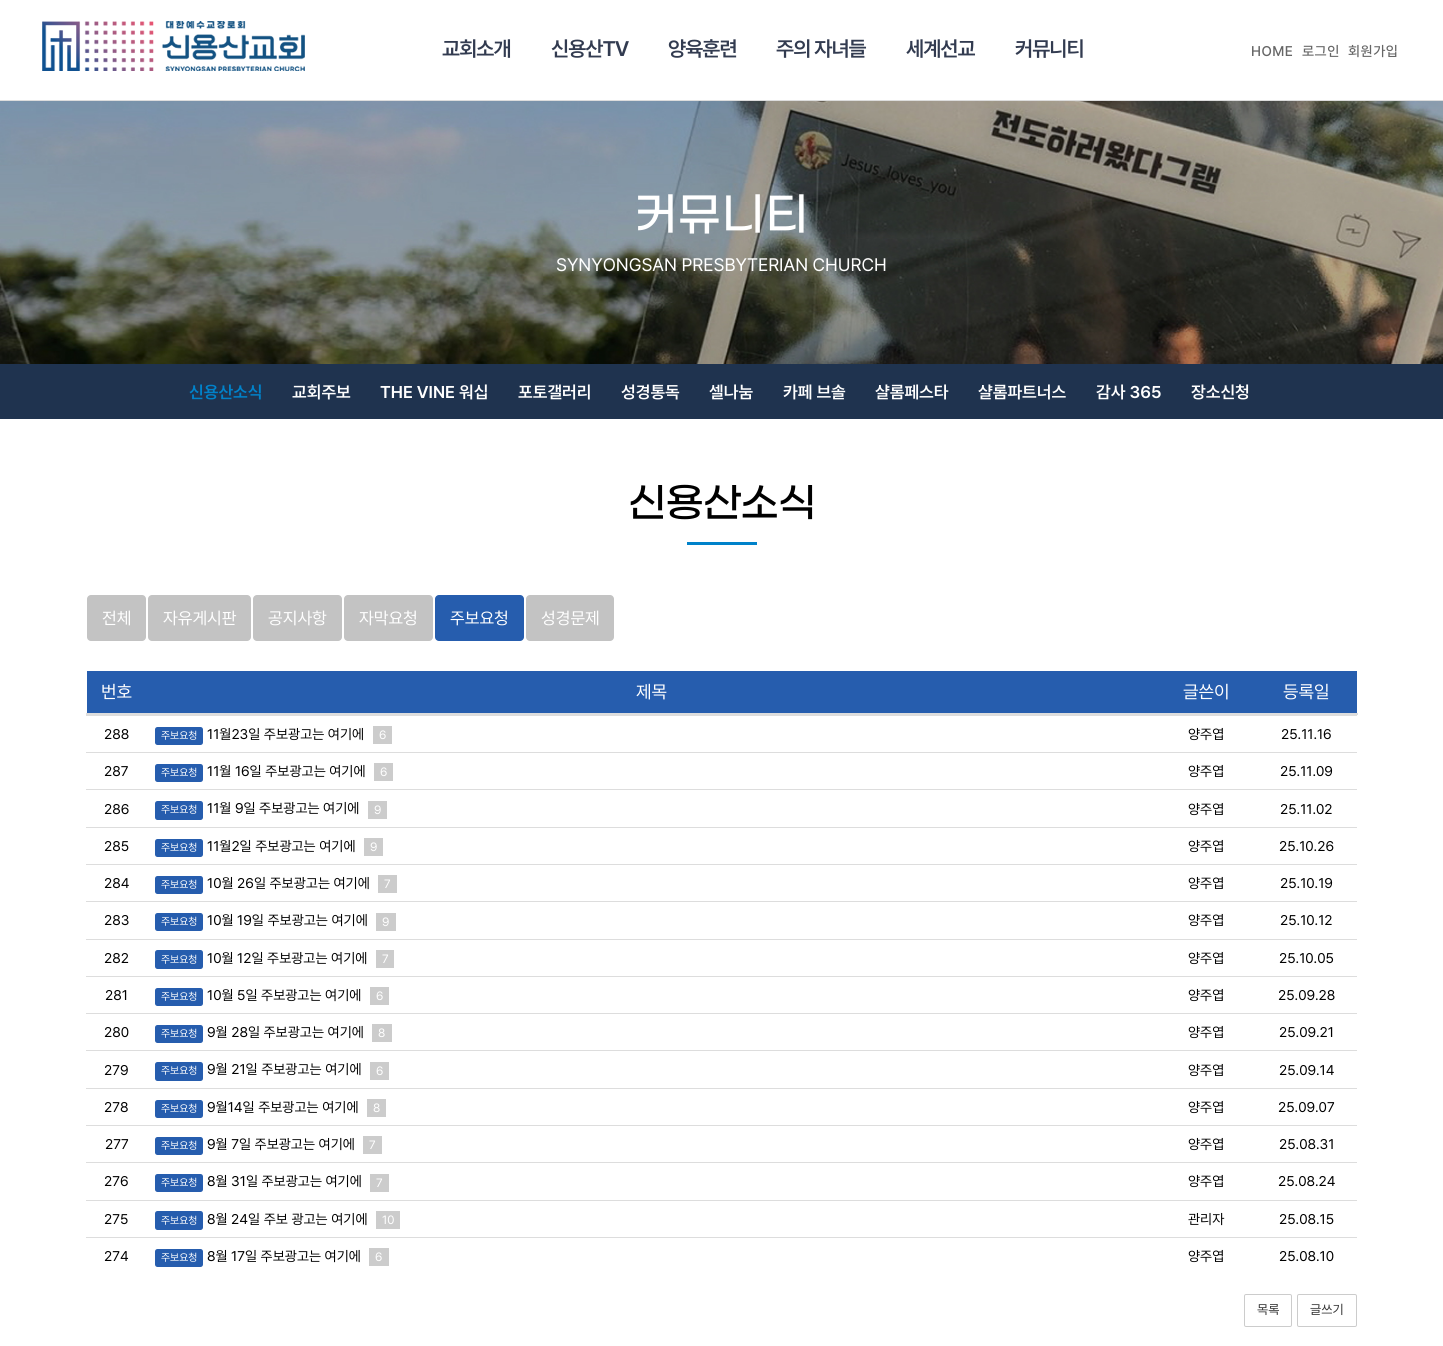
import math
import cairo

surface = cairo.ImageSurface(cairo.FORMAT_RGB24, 1443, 1346)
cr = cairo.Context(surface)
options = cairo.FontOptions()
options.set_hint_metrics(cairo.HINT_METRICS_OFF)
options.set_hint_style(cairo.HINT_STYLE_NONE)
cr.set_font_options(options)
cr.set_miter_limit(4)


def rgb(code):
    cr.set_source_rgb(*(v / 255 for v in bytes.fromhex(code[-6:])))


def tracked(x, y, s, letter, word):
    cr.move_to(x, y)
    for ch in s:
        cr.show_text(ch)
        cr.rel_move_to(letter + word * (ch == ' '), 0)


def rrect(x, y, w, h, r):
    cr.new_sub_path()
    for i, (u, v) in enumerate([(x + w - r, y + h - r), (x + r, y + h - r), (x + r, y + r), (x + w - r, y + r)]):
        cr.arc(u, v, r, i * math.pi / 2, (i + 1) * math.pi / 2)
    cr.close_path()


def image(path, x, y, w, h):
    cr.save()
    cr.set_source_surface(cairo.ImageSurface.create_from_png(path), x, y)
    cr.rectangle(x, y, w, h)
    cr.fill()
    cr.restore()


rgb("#ffffff")
cr.paint()
rgb("#dddddd")
cr.rectangle(0, 100, 1443, 1)
cr.fill()
image("img/1.png", 42, 21, 263, 50)
image("img/2.png", 0, 101, 1443, 263)
rgb("#1f334f")
cr.rectangle(0, 364, 1443, 55)
cr.fill()
rgb("#0082ca")
cr.rectangle(687, 542, 70, 3)
cr.fill()
rgb("#c3c3c3")
rrect(87, 595, 59, 46, 4)
cr.fill()
rrect(148, 595, 103, 46, 4)
cr.fill()
rrect(253, 595, 89, 46, 4)
cr.fill()
rrect(344, 595, 89, 46, 4)
cr.fill()
rgb("#265dae")
rrect(435, 595, 89, 46, 4)
cr.fill()
rgb("#c3c3c3")
rrect(526, 595, 88, 46, 4)
cr.fill()
rgb("#265dae")
cr.rectangle(87, 671, 1270, 42)
cr.fill()
rgb("#dddddd")
cr.rectangle(86, 713, 1272, 2)
cr.fill()
rgb("#265dae")
rrect(155, 727, 48, 18, 2.5)
cr.fill()
rgb("#cccccc")
cr.rectangle(373, 726, 19, 18)
cr.fill()
rgb("#dddddd")
cr.rectangle(86, 715, 1271, 1)
cr.fill()
rgb("#265dae")
rrect(155, 764, 48, 18, 2.5)
cr.fill()
rgb("#cccccc")
cr.rectangle(374, 763, 19, 18)
cr.fill()
rgb("#dddddd")
cr.rectangle(86, 752, 1271, 1)
cr.fill()
rgb("#265dae")
rrect(155, 801, 48, 19, 2.5)
cr.fill()
rgb("#cccccc")
cr.rectangle(368, 801, 19, 18)
cr.fill()
rgb("#dddddd")
cr.rectangle(86, 789, 1271, 1)
cr.fill()
rgb("#265dae")
rrect(155, 839, 48, 18, 2.5)
cr.fill()
rgb("#cccccc")
cr.rectangle(364, 838, 19, 18)
cr.fill()
rgb("#dddddd")
cr.rectangle(86, 827, 1271, 1)
cr.fill()
rgb("#265dae")
rrect(155, 876, 48, 18, 2.5)
cr.fill()
rgb("#cccccc")
cr.rectangle(378, 875, 19, 18)
cr.fill()
rgb("#dddddd")
cr.rectangle(86, 864, 1271, 1)
cr.fill()
rgb("#265dae")
rrect(155, 913, 48, 18, 2.5)
cr.fill()
rgb("#cccccc")
cr.rectangle(376, 913, 20, 18)
cr.fill()
rgb("#dddddd")
cr.rectangle(86, 901, 1271, 1)
cr.fill()
rgb("#265dae")
rrect(155, 950, 48, 19, 2.5)
cr.fill()
rgb("#cccccc")
cr.rectangle(376, 950, 18, 18)
cr.fill()
rgb("#dddddd")
cr.rectangle(86, 939, 1271, 1)
cr.fill()
rgb("#265dae")
rrect(155, 988, 48, 18, 2.5)
cr.fill()
rgb("#cccccc")
cr.rectangle(370, 987, 19, 18)
cr.fill()
rgb("#dddddd")
cr.rectangle(86, 976, 1271, 1)
cr.fill()
rgb("#265dae")
rrect(155, 1025, 48, 18, 2.5)
cr.fill()
rgb("#cccccc")
cr.rectangle(372, 1024, 20, 18)
cr.fill()
rgb("#dddddd")
cr.rectangle(86, 1013, 1271, 1)
cr.fill()
rgb("#265dae")
rrect(155, 1062, 48, 19, 2.5)
cr.fill()
rgb("#cccccc")
cr.rectangle(370, 1062, 19, 18)
cr.fill()
rgb("#dddddd")
cr.rectangle(86, 1050, 1271, 1)
cr.fill()
rgb("#265dae")
rrect(155, 1100, 48, 18, 2.5)
cr.fill()
rgb("#cccccc")
cr.rectangle(367, 1099, 19, 18)
cr.fill()
rgb("#dddddd")
cr.rectangle(86, 1088, 1271, 1)
cr.fill()
rgb("#265dae")
rrect(155, 1137, 48, 18, 2.5)
cr.fill()
rgb("#cccccc")
cr.rectangle(363, 1136, 19, 18)
cr.fill()
rgb("#dddddd")
cr.rectangle(86, 1125, 1271, 1)
cr.fill()
rgb("#265dae")
rrect(155, 1174, 48, 18, 2.5)
cr.fill()
rgb("#cccccc")
cr.rectangle(370, 1174, 19, 18)
cr.fill()
rgb("#dddddd")
cr.rectangle(86, 1162, 1271, 1)
cr.fill()
rgb("#265dae")
rrect(155, 1211, 48, 19, 2.5)
cr.fill()
rgb("#cccccc")
cr.rectangle(376, 1211, 24, 18)
cr.fill()
rgb("#dddddd")
cr.rectangle(86, 1200, 1271, 1)
cr.fill()
rgb("#265dae")
rrect(155, 1249, 48, 18, 2.5)
cr.fill()
rgb("#cccccc")
cr.rectangle(369, 1248, 20, 18)
cr.fill()
rgb("#dddddd")
cr.rectangle(86, 1237, 1271, 1)
cr.fill()
rrect(1244.5, 1294.5, 47, 32, 1.5)
rgb("#cccccc")
cr.set_line_width(1)
cr.stroke()
rrect(1297.5, 1294.5, 59, 32, 1.5)
cr.stroke()
cr.select_font_face("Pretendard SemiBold")
cr.set_font_size(21)
rgb("#323b50")
for x, y, s in [
    (442, 56, "교회소개"),
    (551, 56, "신용산TV"),
    (668, 56, "양육훈련"),
    (776, 56, "주의 자녀들"),
    (906, 56, "세계선교"),
    (1015, 56, "커뮤니티"),
]:
    tracked(x, y, s, -1, 0)
cr.select_font_face("Pretendard Medium")
cr.set_font_size(14)
rgb("#666666")
for x, y, s in [
    (1251, 56, "HOME"),
    (1302, 56, "로그인"),
    (1348, 56, "회원가입"),
]:
    tracked(x, y, s, 0.5, 0)
cr.select_font_face("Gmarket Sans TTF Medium")
cr.set_font_size(45)
rgb("#ffffff")
tracked(634, 228, "커뮤니티", 0.5, 0)
cr.select_font_face("Pretendard")
cr.set_font_size(18)
cr.move_to(556, 271)
cr.show_text("SYNYONGSAN PRESBYTERIAN CHURCH")
cr.select_font_face("Pretendard SemiBold")
cr.set_font_size(17)
rgb("#0082ca")
cr.move_to(189, 398)
cr.show_text("신용산소식")
rgb("#ffffff")
for x, y, s in [
    (292, 398, "교회주보"),
    (380, 398, "THE VINE 워십"),
    (518, 398, "포토갤러리"),
    (621, 398, "성경통독"),
    (709, 398, "셀나눔"),
    (783, 398, "카페 브솔"),
    (875, 398, "샬롬페스타"),
    (978, 398, "샬롬파트너스"),
    (1096, 398, "감사 365"),
    (1191, 398, "장소신청"),
]:
    cr.move_to(x, y)
    cr.show_text(s)
cr.select_font_face("Gmarket Sans TTF Medium")
cr.set_font_size(40)
rgb("#000000")
tracked(628, 515, "신용산소식", -1, 0)
cr.select_font_face("Pretendard")
cr.set_font_size(17)
rgb("#ffffff")
for x, y, s in [
    (102, 624, "전체"),
    (163, 624, "자유게시판"),
    (268, 624, "공지사항"),
    (359, 624, "자막요청"),
    (450, 624, "주보요청"),
    (541, 624, "성경문제"),
]:
    cr.move_to(x, y)
    cr.show_text(s)
cr.set_font_size(18)
for x, y, s in [
    (101, 698, "번호"),
    (636, 698, "제목"),
    (1183, 698, "글쓴이"),
    (1283, 698, "등록일"),
]:
    cr.move_to(x, y)
    cr.show_text(s)
cr.set_font_size(14)
rgb("#000000")
cr.move_to(104, 739)
cr.show_text("288")
cr.set_font_size(10.5)
rgb("#ffffff")
cr.move_to(161, 739)
cr.show_text("주보요청")
cr.set_font_size(14)
rgb("#000000")
cr.move_to(207, 739)
cr.show_text("11월23일 주보광고는 여기에")
cr.set_font_size(12)
rgb("#ffffff")
cr.move_to(379, 739)
cr.show_text("6")
cr.set_font_size(14)
rgb("#000000")
for x, y, s in [
    (1188, 739, "양주엽"),
    (1281, 739, "25.11.16"),
    (104, 776, "287"),
]:
    cr.move_to(x, y)
    cr.show_text(s)
cr.set_font_size(10.5)
rgb("#ffffff")
cr.move_to(161, 776)
cr.show_text("주보요청")
cr.set_font_size(14)
rgb("#000000")
cr.move_to(207, 776)
cr.show_text("11월 16일 주보광고는 여기에")
cr.set_font_size(12)
rgb("#ffffff")
cr.move_to(380, 776)
cr.show_text("6")
cr.set_font_size(14)
rgb("#000000")
for x, y, s in [
    (1188, 776, "양주엽"),
    (1280, 776, "25.11.09"),
    (104, 814, "286"),
]:
    cr.move_to(x, y)
    cr.show_text(s)
cr.set_font_size(10.5)
rgb("#ffffff")
cr.move_to(161, 813)
cr.show_text("주보요청")
cr.set_font_size(14)
rgb("#000000")
cr.move_to(207, 813)
cr.show_text("11월 9일 주보광고는 여기에")
cr.set_font_size(12)
rgb("#ffffff")
cr.move_to(374, 814)
cr.show_text("9")
cr.set_font_size(14)
rgb("#000000")
for x, y, s in [
    (1188, 814, "양주엽"),
    (1280, 814, "25.11.02"),
    (104, 851, "285"),
]:
    cr.move_to(x, y)
    cr.show_text(s)
cr.set_font_size(10.5)
rgb("#ffffff")
cr.move_to(161, 851)
cr.show_text("주보요청")
cr.set_font_size(14)
rgb("#000000")
cr.move_to(207, 851)
cr.show_text("11월2일 주보광고는 여기에")
cr.set_font_size(12)
rgb("#ffffff")
cr.move_to(370, 851)
cr.show_text("9")
cr.set_font_size(14)
rgb("#000000")
for x, y, s in [
    (1188, 851, "양주엽"),
    (1279, 851, "25.10.26"),
    (104, 888, "284"),
]:
    cr.move_to(x, y)
    cr.show_text(s)
cr.set_font_size(10.5)
rgb("#ffffff")
cr.move_to(161, 888)
cr.show_text("주보요청")
cr.set_font_size(14)
rgb("#000000")
cr.move_to(207, 888)
cr.show_text("10월 26일 주보광고는 여기에")
cr.set_font_size(12)
rgb("#ffffff")
cr.move_to(384, 888)
cr.show_text("7")
cr.set_font_size(14)
rgb("#000000")
for x, y, s in [
    (1188, 888, "양주엽"),
    (1280, 888, "25.10.19"),
    (104, 925, "283"),
]:
    cr.move_to(x, y)
    cr.show_text(s)
cr.set_font_size(10.5)
rgb("#ffffff")
cr.move_to(161, 925)
cr.show_text("주보요청")
cr.set_font_size(14)
rgb("#000000")
cr.move_to(207, 925)
cr.show_text("10월 19일 주보광고는 여기에")
cr.set_font_size(12)
rgb("#ffffff")
cr.move_to(382, 926)
cr.show_text("9")
cr.set_font_size(14)
rgb("#000000")
for x, y, s in [
    (1188, 925, "양주엽"),
    (1280, 925, "25.10.12"),
    (104, 963, "282"),
]:
    cr.move_to(x, y)
    cr.show_text(s)
cr.set_font_size(10.5)
rgb("#ffffff")
cr.move_to(161, 963)
cr.show_text("주보요청")
cr.set_font_size(14)
rgb("#000000")
cr.move_to(207, 963)
cr.show_text("10월 12일 주보광고는 여기에")
cr.set_font_size(12)
rgb("#ffffff")
cr.move_to(382, 963)
cr.show_text("7")
cr.set_font_size(14)
rgb("#000000")
for x, y, s in [
    (1188, 963, "양주엽"),
    (1279, 963, "25.10.05"),
    (105, 1000, "281"),
]:
    cr.move_to(x, y)
    cr.show_text(s)
cr.set_font_size(10.5)
rgb("#ffffff")
cr.move_to(161, 1000)
cr.show_text("주보요청")
cr.set_font_size(14)
rgb("#000000")
cr.move_to(207, 1000)
cr.show_text("10월 5일 주보광고는 여기에")
cr.set_font_size(12)
rgb("#ffffff")
cr.move_to(376, 1000)
cr.show_text("6")
cr.set_font_size(14)
rgb("#000000")
for x, y, s in [
    (1188, 1000, "양주엽"),
    (1278, 1000, "25.09.28"),
    (104, 1037, "280"),
]:
    cr.move_to(x, y)
    cr.show_text(s)
cr.set_font_size(10.5)
rgb("#ffffff")
cr.move_to(161, 1037)
cr.show_text("주보요청")
cr.set_font_size(14)
rgb("#000000")
cr.move_to(207, 1037)
cr.show_text("9월 28일 주보광고는 여기에")
cr.set_font_size(12)
rgb("#ffffff")
cr.move_to(378, 1037)
cr.show_text("8")
cr.set_font_size(14)
rgb("#000000")
for x, y, s in [
    (1188, 1037, "양주엽"),
    (1279, 1037, "25.09.21"),
    (104, 1075, "279"),
]:
    cr.move_to(x, y)
    cr.show_text(s)
cr.set_font_size(10.5)
rgb("#ffffff")
cr.move_to(161, 1074)
cr.show_text("주보요청")
cr.set_font_size(14)
rgb("#000000")
cr.move_to(207, 1074)
cr.show_text("9월 21일 주보광고는 여기에")
cr.set_font_size(12)
rgb("#ffffff")
cr.move_to(376, 1075)
cr.show_text("6")
cr.set_font_size(14)
rgb("#000000")
for x, y, s in [
    (1188, 1075, "양주엽"),
    (1279, 1075, "25.09.14"),
    (104, 1112, "278"),
]:
    cr.move_to(x, y)
    cr.show_text(s)
cr.set_font_size(10.5)
rgb("#ffffff")
cr.move_to(161, 1112)
cr.show_text("주보요청")
cr.set_font_size(14)
rgb("#000000")
cr.move_to(207, 1112)
cr.show_text("9월14일 주보광고는 여기에")
cr.set_font_size(12)
rgb("#ffffff")
cr.move_to(373, 1112)
cr.show_text("8")
cr.set_font_size(14)
rgb("#000000")
for x, y, s in [
    (1188, 1112, "양주엽"),
    (1278, 1112, "25.09.07"),
    (105, 1149, "277"),
]:
    cr.move_to(x, y)
    cr.show_text(s)
cr.set_font_size(10.5)
rgb("#ffffff")
cr.move_to(161, 1149)
cr.show_text("주보요청")
cr.set_font_size(14)
rgb("#000000")
cr.move_to(207, 1149)
cr.show_text("9월 7일 주보광고는 여기에")
cr.set_font_size(12)
rgb("#ffffff")
cr.move_to(369, 1149)
cr.show_text("7")
cr.set_font_size(14)
rgb("#000000")
for x, y, s in [
    (1188, 1149, "양주엽"),
    (1279, 1149, "25.08.31"),
    (104, 1186, "276"),
]:
    cr.move_to(x, y)
    cr.show_text(s)
cr.set_font_size(10.5)
rgb("#ffffff")
cr.move_to(161, 1186)
cr.show_text("주보요청")
cr.set_font_size(14)
rgb("#000000")
cr.move_to(207, 1186)
cr.show_text("8월 31일 주보광고는 여기에")
cr.set_font_size(12)
rgb("#ffffff")
cr.move_to(376, 1187)
cr.show_text("7")
cr.set_font_size(14)
rgb("#000000")
for x, y, s in [
    (1188, 1186, "양주엽"),
    (1278, 1186, "25.08.24"),
    (104, 1224, "275"),
]:
    cr.move_to(x, y)
    cr.show_text(s)
cr.set_font_size(10.5)
rgb("#ffffff")
cr.move_to(161, 1224)
cr.show_text("주보요청")
cr.set_font_size(14)
rgb("#000000")
cr.move_to(207, 1224)
cr.show_text("8월 24일 주보 광고는 여기에")
cr.set_font_size(12)
rgb("#ffffff")
cr.move_to(382, 1224)
cr.show_text("10")
cr.set_font_size(14)
rgb("#000000")
for x, y, s in [
    (1188, 1224, "관리자"),
    (1279, 1224, "25.08.15"),
    (104, 1261, "274"),
]:
    cr.move_to(x, y)
    cr.show_text(s)
cr.set_font_size(10.5)
rgb("#ffffff")
cr.move_to(161, 1261)
cr.show_text("주보요청")
cr.set_font_size(14)
rgb("#000000")
cr.move_to(207, 1261)
cr.show_text("8월 17일 주보광고는 여기에")
cr.set_font_size(12)
rgb("#ffffff")
cr.move_to(375, 1261)
cr.show_text("6")
cr.set_font_size(14)
rgb("#000000")
cr.move_to(1188, 1261)
cr.show_text("양주엽")
cr.move_to(1279, 1261)
cr.show_text("25.08.10")
cr.set_font_size(13)
rgb("#333333")
cr.move_to(1257, 1314)
cr.show_text("목록")
cr.move_to(1310, 1314)
cr.show_text("글쓰기")
surface.write_to_png("page.png")
